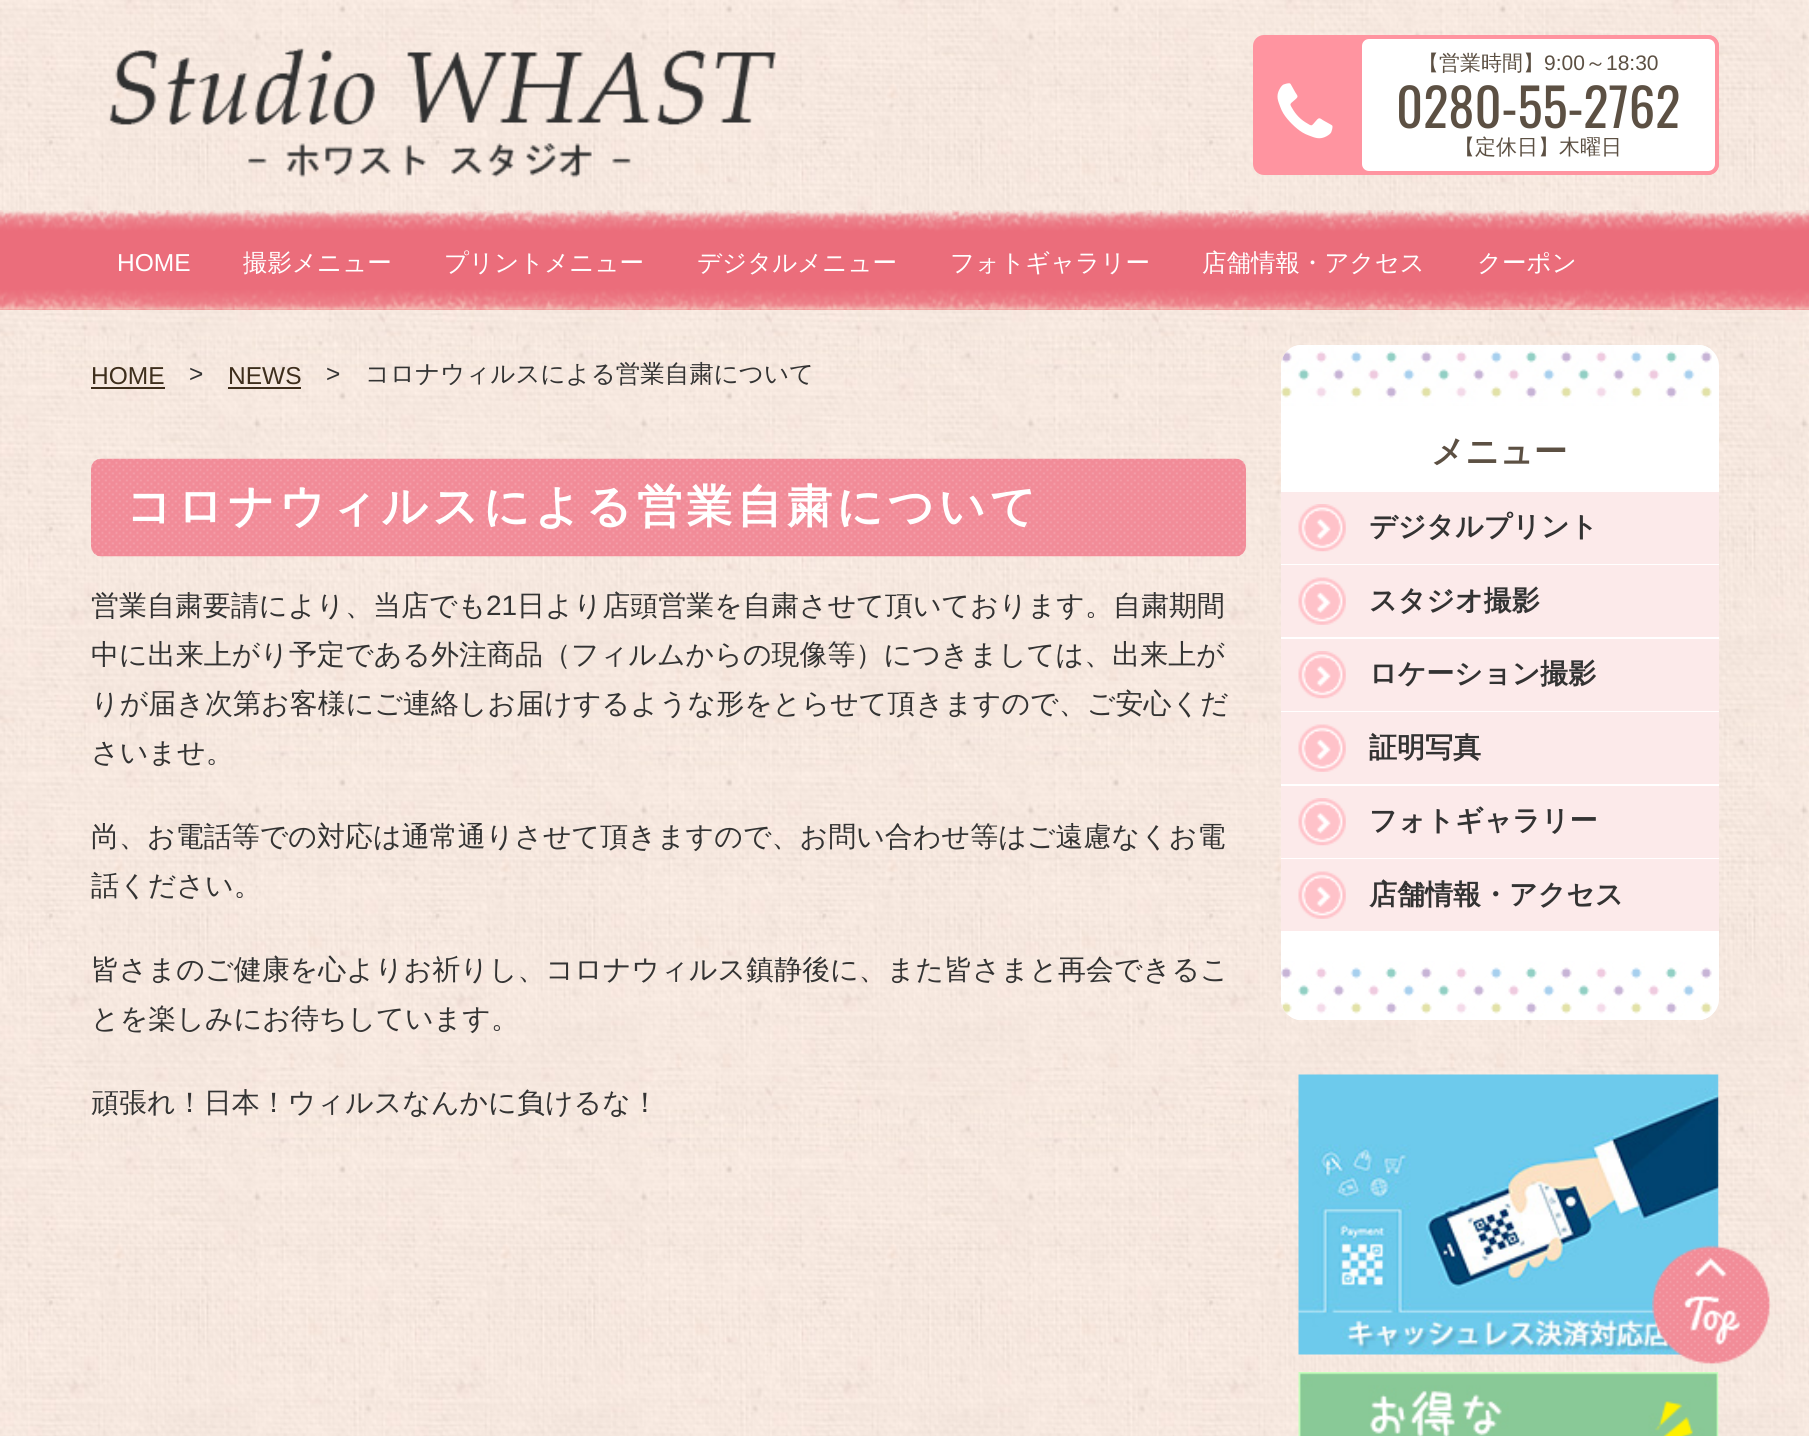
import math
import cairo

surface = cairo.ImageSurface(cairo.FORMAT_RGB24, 1809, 1436)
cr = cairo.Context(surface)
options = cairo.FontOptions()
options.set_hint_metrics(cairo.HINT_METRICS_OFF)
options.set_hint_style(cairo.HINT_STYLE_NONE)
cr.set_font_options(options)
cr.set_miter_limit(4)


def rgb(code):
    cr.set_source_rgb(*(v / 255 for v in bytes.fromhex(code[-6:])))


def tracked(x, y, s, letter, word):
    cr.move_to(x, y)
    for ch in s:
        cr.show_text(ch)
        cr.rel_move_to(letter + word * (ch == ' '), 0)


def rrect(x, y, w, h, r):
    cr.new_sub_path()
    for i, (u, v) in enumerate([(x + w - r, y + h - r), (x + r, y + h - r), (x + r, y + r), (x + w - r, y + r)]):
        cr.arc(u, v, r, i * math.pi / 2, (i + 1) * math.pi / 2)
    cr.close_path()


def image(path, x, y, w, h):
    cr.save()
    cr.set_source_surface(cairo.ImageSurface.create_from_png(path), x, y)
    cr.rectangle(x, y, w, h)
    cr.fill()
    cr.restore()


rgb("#ffffff")
cr.paint()
image("img/1.png", 0, 0, 1809, 1436)
image("img/2.png", 109, 48, 667, 130)
rgb("#ff94a0")
rrect(1253, 35, 466, 140, 11)
cr.fill()
image("img/3.png", 1277, 83, 56, 56)
rgb("#ffffff")
rrect(1360, 37, 357, 136, 9)
cr.fill_preserve()
rgb("#ff94a0")
cr.set_line_width(4)
cr.stroke()
rgb("#eb6d7b")
cr.rectangle(0, 259, 1809, 51)
cr.fill()
image("img/4.png", 0, 210, 1809, 100)
rgb("#3e2e1c")
cr.rectangle(91, 387, 74, 2)
cr.fill()
cr.rectangle(228, 387, 73, 2)
cr.fill()
image("img/5.png", 91, 458, 1155, 99)
rgb("#ffffff")
rrect(1281, 345, 438, 675, 21)
cr.fill()
image("img/6.png", 1281, 345, 431, 675)
rgb("#fceaea")
cr.rectangle(1281, 492, 438, 72)
cr.fill()
image("img/7.png", 1298, 504, 48, 48)
cr.rectangle(1281, 565, 438, 72)
cr.fill()
image("img/8.png", 1298, 577, 48, 48)
cr.rectangle(1281, 639, 438, 72)
cr.fill()
image("img/7.png", 1298, 651, 48, 48)
cr.rectangle(1281, 712, 438, 72)
cr.fill()
image("img/8.png", 1298, 724, 48, 48)
cr.rectangle(1281, 786, 438, 72)
cr.fill()
image("img/7.png", 1298, 798, 48, 48)
cr.rectangle(1281, 859, 438, 72)
cr.fill()
image("img/8.png", 1298, 871, 48, 48)
image("img/9.png", 1298, 1074, 421, 281)
image("img/10.png", 1298, 1372, 421, 64)
image("img/11.png", 1652, 1245, 119, 119)
cr.select_font_face("WenQuanYi Zen Hei Medium")
cr.set_font_size(21)
rgb("#5c5043")
cr.move_to(1418, 70)
cr.show_text("【営業時間】")
cr.select_font_face("Liberation Sans")
cr.move_to(1544, 70)
cr.show_text("9:00")
cr.select_font_face("WenQuanYi Zen Hei Medium")
cr.move_to(1585, 70)
cr.show_text("～")
cr.select_font_face("Liberation Sans")
cr.move_to(1606, 70)
cr.show_text("18:30")
cr.select_font_face("Oswald")
cr.set_font_size(52.5)
cr.move_to(1396, 128)
cr.show_text("0280-55-2762")
cr.select_font_face("WenQuanYi Zen Hei Medium")
cr.set_font_size(21)
cr.move_to(1454, 154)
cr.show_text("【定休日】木曜日")
cr.select_font_face("Liberation Sans")
cr.set_font_size(24.5)
rgb("#ffffff")
cr.move_to(117, 271)
cr.show_text("HOME")
cr.select_font_face("WenQuanYi Zen Hei Medium")
for x, y, s in [
    (243, 271, "撮影メニュー"),
    (444, 271, "プリントメニュー"),
    (697, 271, "デジタルメニュー"),
    (950, 271, "フォトギャラリー"),
    (1202, 271, "店舗情報・アクセス"),
    (1477, 271, "クーポン"),
]:
    cr.move_to(x, y)
    cr.show_text(s)
cr.select_font_face("Liberation Sans")
rgb("#3e2e1c")
cr.move_to(91, 384)
cr.show_text("HOME")
rgb("#333333")
cr.move_to(189, 382)
cr.show_text(">")
rgb("#3e2e1c")
cr.move_to(228, 384)
cr.show_text("NEWS")
rgb("#333333")
cr.move_to(326, 382)
cr.show_text(">")
cr.select_font_face("WenQuanYi Zen Hei Medium")
cr.move_to(365, 382)
cr.show_text("コロナウィルスによる営業自粛について")
cr.select_font_face("WenQuanYi Zen Hei", cairo.FONT_SLANT_NORMAL, cairo.FONT_WEIGHT_BOLD)
cr.set_font_size(45.5)
rgb("#ffffff")
tracked(126, 522, "コロナウィルスによる営業自粛について", 4.5, 0)
cr.select_font_face("WenQuanYi Zen Hei Medium")
cr.set_font_size(28)
rgb("#333333")
cr.move_to(91, 615)
cr.show_text("営業自粛要請により、当店でも")
cr.select_font_face("Liberation Sans")
cr.move_to(486, 615)
cr.show_text("21")
cr.select_font_face("WenQuanYi Zen Hei Medium")
for x, y, s in [
    (517, 615, "日より店頭営業を自粛させて頂いております。自粛期間"),
    (91, 664, "中に出来上がり予定である外注商品（フィルムからの現像等）につきましては、出来上が"),
    (91, 713, "りが届き次第お客様にご連絡しお届けするような形をとらせて頂きますので、ご安心くだ"),
    (91, 762, "さいませ。"),
    (91, 846, "尚、お電話等での対応は通常通りさせて頂きますので、お問い合わせ等はご遠慮なくお電"),
    (91, 895, "話ください。"),
    (91, 979, "皆さまのご健康を心よりお祈りし、コロナウィルス鎮静後に、また皆さまと再会できるこ"),
    (91, 1028, "とを楽しみにお待ちしています。"),
    (91, 1112, "頑張れ！日本！ウィルスなんかに負けるな！"),
]:
    cr.move_to(x, y)
    cr.show_text(s)
cr.select_font_face("WenQuanYi Zen Hei", cairo.FONT_SLANT_NORMAL, cairo.FONT_WEIGHT_BOLD)
cr.set_font_size(33.5)
rgb("#5c5043")
cr.move_to(1431, 463)
cr.show_text("メニュー")
cr.set_font_size(28)
rgb("#333333")
for x, y, s in [
    (1369, 536, "デジタルプリント"),
    (1369, 610, "スタジオ撮影"),
    (1369, 683, "ロケーション撮影"),
    (1369, 757, "証明写真"),
    (1369, 830, "フォトギャラリー"),
    (1369, 904, "店舗情報・アクセス"),
]:
    cr.move_to(x, y)
    cr.show_text(s)
surface.write_to_png("page.png")
